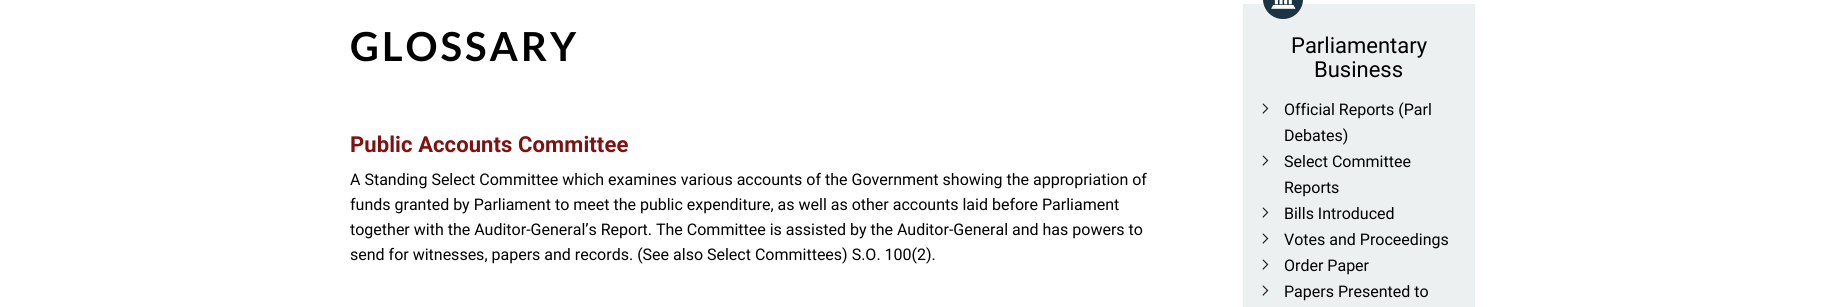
import math
import cairo

surface = cairo.ImageSurface(cairo.FORMAT_RGB24, 1840, 307)
cr = cairo.Context(surface)
options = cairo.FontOptions()
options.set_hint_metrics(cairo.HINT_METRICS_OFF)
options.set_hint_style(cairo.HINT_STYLE_NONE)
cr.set_font_options(options)
cr.set_miter_limit(4)


def rgb(code):
    cr.set_source_rgb(*(v / 255 for v in bytes.fromhex(code[-6:])))


def tracked(x, y, s, letter, word):
    cr.move_to(x, y)
    for ch in s:
        cr.show_text(ch)
        cr.rel_move_to(letter + word * (ch == ' '), 0)


def image(path, x, y, w, h):
    cr.save()
    cr.set_source_surface(cairo.ImageSurface.create_from_png(path), x, y)
    cr.rectangle(x, y, w, h)
    cr.fill()
    cr.restore()


rgb("#ffffff")
cr.paint()
rgb("#ecf0f1")
cr.rectangle(1243, 4, 232, 303)
cr.fill()
image("img/1.png", 1263, 0, 40, 19)
image("img/2.png", 1262, 103, 7, 11)
image("img/2.png", 1262, 155, 7, 11)
image("img/2.png", 1262, 207, 7, 11)
image("img/2.png", 1262, 233, 7, 11)
image("img/2.png", 1262, 259, 7, 11)
image("img/2.png", 1262, 285, 7, 11)
cr.select_font_face("Lato", cairo.FONT_SLANT_NORMAL, cairo.FONT_WEIGHT_BOLD)
cr.set_font_size(40)
rgb("#000000")
tracked(350, 61, "GLOSSARY", 3, 0)
cr.select_font_face("Roboto", cairo.FONT_SLANT_NORMAL, cairo.FONT_WEIGHT_BOLD)
cr.set_font_size(22)
rgb("#7d1211")
tracked(350, 152, "Public Accounts Committee", 0.1, 0)
cr.select_font_face("Roboto")
cr.set_font_size(16)
rgb("#000000")
for x, y, s in [
    (350, 185, "A Standing Select Committee which examines various accounts of the Government showing the appropriation of"),
    (350, 210, "funds granted by Parliament to meet the public expenditure, as well as other accounts laid before Parliament"),
    (350, 235, "together with the Auditor-General’s Report. The Committee is assisted by the Auditor-General and has powers to"),
    (350, 260, "send for witnesses, papers and records. (See also Select Committees) S.O. 100(2)."),
]:
    cr.move_to(x, y)
    cr.show_text(s)
cr.set_font_size(22)
cr.move_to(1291, 53)
cr.show_text("Parliamentary")
cr.move_to(1314, 77)
cr.show_text("Business")
cr.set_font_size(16)
for x, y, s in [
    (1284, 115, "Official Reports (Parl"),
    (1284, 141, "Debates)"),
    (1284, 167, "Select Committee"),
    (1284, 193, "Reports"),
    (1284, 219, "Bills Introduced"),
    (1284, 245, "Votes and Proceedings"),
    (1284, 271, "Order Paper"),
    (1284, 297, "Papers Presented to"),
]:
    cr.move_to(x, y)
    cr.show_text(s)
surface.write_to_png("page.png")
